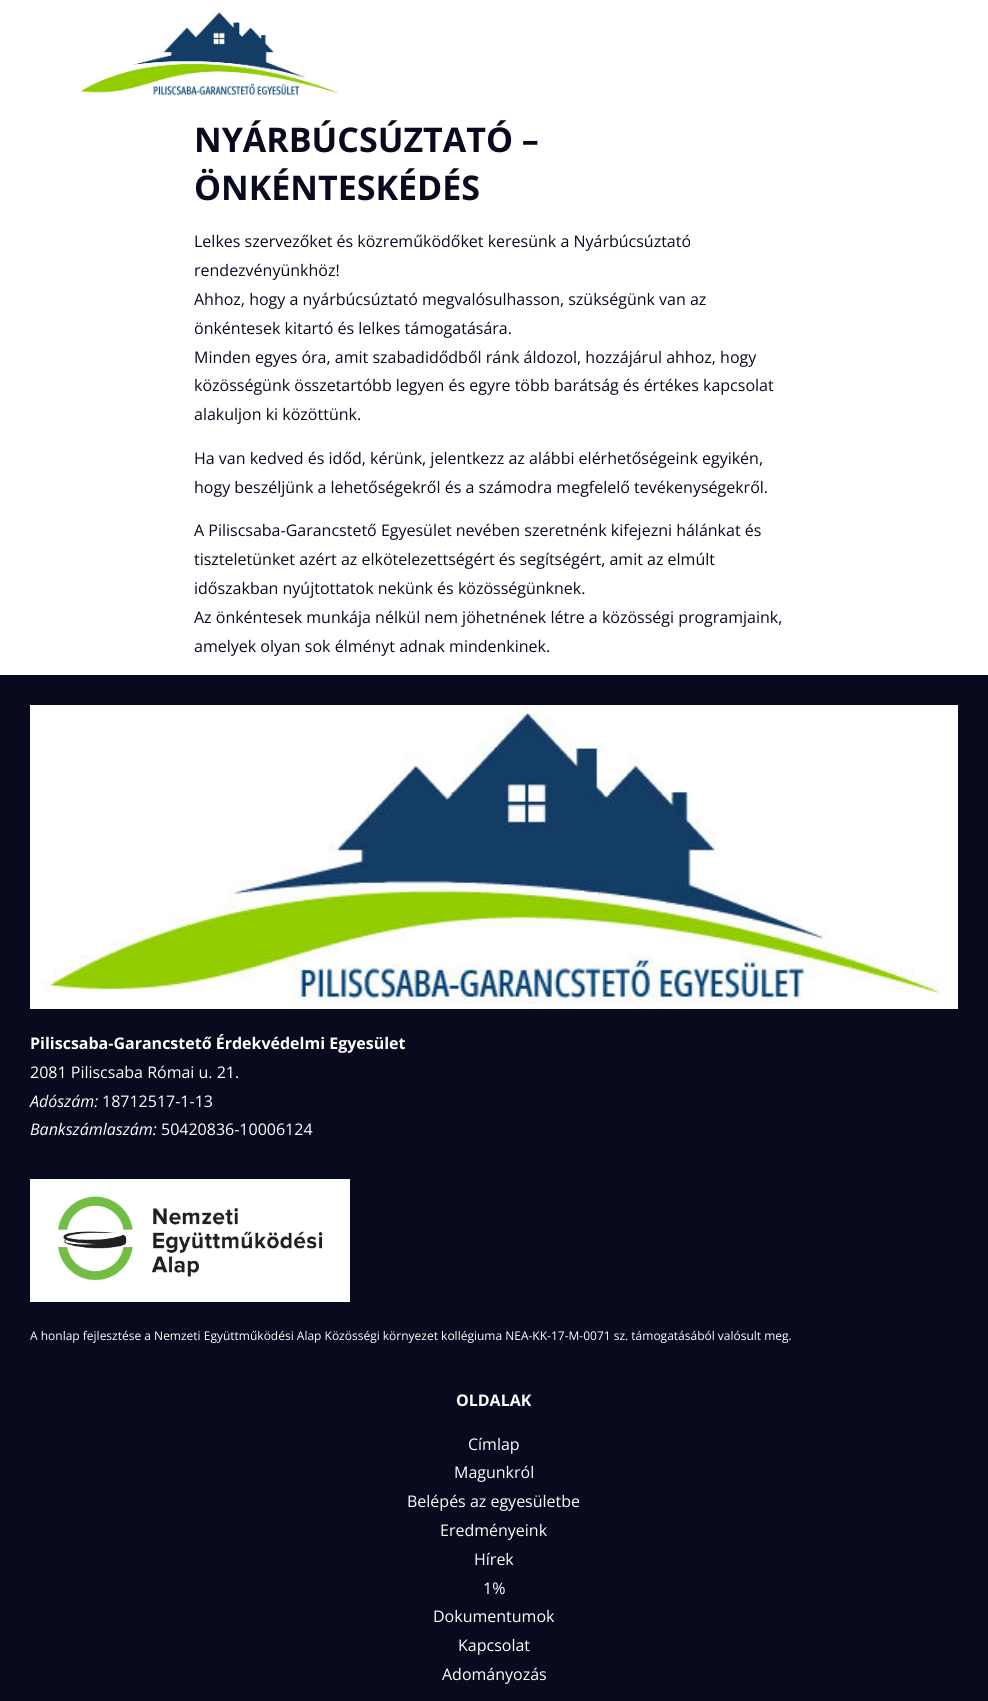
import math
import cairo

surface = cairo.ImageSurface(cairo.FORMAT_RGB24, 988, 1701)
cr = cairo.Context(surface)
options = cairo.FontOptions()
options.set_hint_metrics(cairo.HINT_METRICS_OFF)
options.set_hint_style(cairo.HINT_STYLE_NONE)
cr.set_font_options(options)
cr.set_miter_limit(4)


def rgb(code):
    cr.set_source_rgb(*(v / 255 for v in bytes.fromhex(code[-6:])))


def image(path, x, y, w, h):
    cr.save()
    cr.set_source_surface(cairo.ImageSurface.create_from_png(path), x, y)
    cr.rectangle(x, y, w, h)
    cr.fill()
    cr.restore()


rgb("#ffffff")
cr.paint()
image("img/1.png", 79, 10, 260, 87)
rgb("#0a0a1e")
cr.rectangle(0, 675, 988, 1026)
cr.fill()
image("img/2.png", 30, 705, 928, 304)
image("img/3.png", 30, 1179, 320, 123)
cr.select_font_face("Open Sans", cairo.FONT_SLANT_NORMAL, cairo.FONT_WEIGHT_BOLD)
cr.set_font_size(34)
cr.move_to(194, 152)
cr.show_text("NYÁRBÚCSÚZTATÓ –")
cr.move_to(194, 200)
cr.show_text("ÖNKÉNTESKÉDÉS")
cr.select_font_face("Open Sans")
cr.set_font_size(16)
for x, y, s in [
    (194, 247, "Lelkes szervezőket és közreműködőket keresünk a Nyárbúcsúztató"),
    (194, 276, "rendezvényünkhöz!"),
    (194, 305, "Ahhoz, hogy a nyárbúcsúztató megvalósulhasson, szükségünk van az"),
    (194, 334, "önkéntesek kitartó és lelkes támogatására."),
    (194, 363, "Minden egyes óra, amit szabadidődből ránk áldozol, hozzájárul ahhoz, hogy"),
    (194, 391, "közösségünk összetartóbb legyen és egyre több barátság és értékes kapcsolat"),
    (194, 420, "alakuljon ki közöttünk."),
    (194, 464, "Ha van kedved és időd, kérünk, jelentkezz az alábbi elérhetőségeink egyikén,"),
    (194, 493, "hogy beszéljünk a lehetőségekről és a számodra megfelelő tevékenységekről."),
    (194, 536, "A Piliscsaba-Garancstető Egyesület nevében szeretnénk kifejezni hálánkat és"),
    (194, 565, "tiszteletünket azért az elkötelezettségért és segítségért, amit az elmúlt"),
    (194, 594, "időszakban nyújtottatok nekünk és közösségünknek."),
    (194, 623, "Az önkéntesek munkája nélkül nem jöhetnének létre a közösségi programjaink,"),
    (194, 652, "amelyek olyan sok élményt adnak mindenkinek."),
]:
    cr.move_to(x, y)
    cr.show_text(s)
cr.select_font_face("Open Sans", cairo.FONT_SLANT_NORMAL, cairo.FONT_WEIGHT_BOLD)
rgb("#ffffff")
cr.move_to(30, 1049)
cr.show_text("Piliscsaba-Garancstető Érdekvédelmi Egyesület")
cr.select_font_face("Open Sans")
cr.move_to(30, 1078)
cr.show_text("2081 Piliscsaba Római u. 21.")
cr.select_font_face("Open Sans", cairo.FONT_SLANT_ITALIC)
cr.move_to(30, 1107)
cr.show_text("Adószám:")
cr.select_font_face("Open Sans")
cr.move_to(102, 1107)
cr.show_text("18712517-1-13")
cr.select_font_face("Open Sans", cairo.FONT_SLANT_ITALIC)
cr.move_to(30, 1135)
cr.show_text("Bankszámlaszám:")
cr.select_font_face("Open Sans")
cr.move_to(161, 1135)
cr.show_text("50420836-10006124")
cr.set_font_size(12)
cr.move_to(30, 1340)
cr.show_text("A honlap fejlesztése a Nemzeti Együttműködési Alap Közösségi környezet kollégiuma NEA-KK-17-M-0071 sz. támogatásából valósult meg.")
cr.select_font_face("Open Sans", cairo.FONT_SLANT_NORMAL, cairo.FONT_WEIGHT_BOLD)
cr.set_font_size(16)
cr.move_to(456, 1406)
cr.show_text("OLDALAK")
cr.select_font_face("Open Sans")
for x, y, s in [
    (468, 1450, "Címlap"),
    (454, 1478, "Magunkról"),
    (407, 1507, "Belépés az egyesületbe"),
    (440, 1536, "Eredményeink"),
    (474, 1565, "Hírek"),
    (483, 1594, "1%"),
    (433, 1622, "Dokumentumok"),
    (458, 1651, "Kapcsolat"),
    (442, 1680, "Adományozás"),
]:
    cr.move_to(x, y)
    cr.show_text(s)
surface.write_to_png("page.png")
